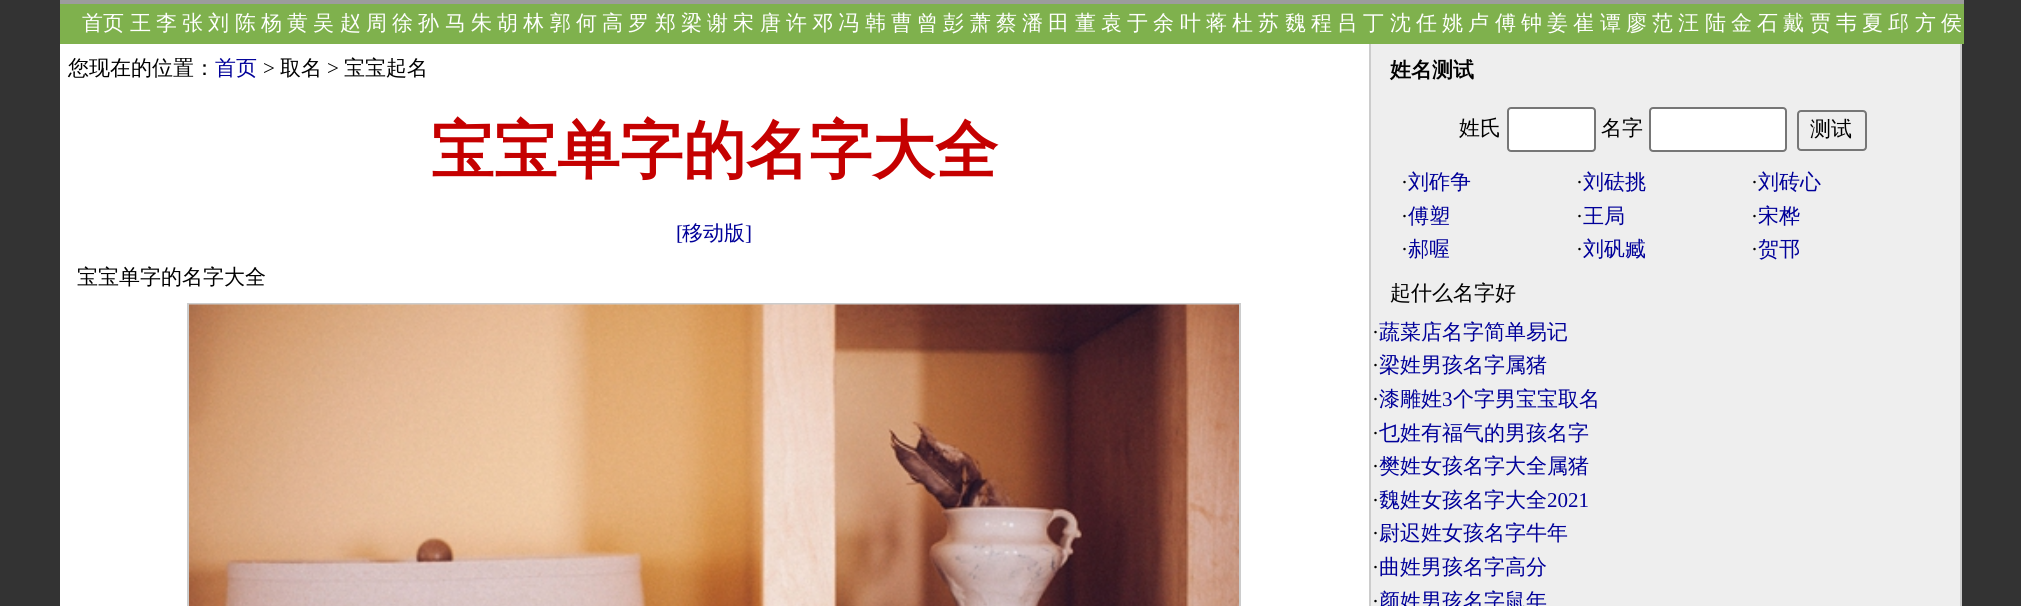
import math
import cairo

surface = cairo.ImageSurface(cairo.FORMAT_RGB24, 2021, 606)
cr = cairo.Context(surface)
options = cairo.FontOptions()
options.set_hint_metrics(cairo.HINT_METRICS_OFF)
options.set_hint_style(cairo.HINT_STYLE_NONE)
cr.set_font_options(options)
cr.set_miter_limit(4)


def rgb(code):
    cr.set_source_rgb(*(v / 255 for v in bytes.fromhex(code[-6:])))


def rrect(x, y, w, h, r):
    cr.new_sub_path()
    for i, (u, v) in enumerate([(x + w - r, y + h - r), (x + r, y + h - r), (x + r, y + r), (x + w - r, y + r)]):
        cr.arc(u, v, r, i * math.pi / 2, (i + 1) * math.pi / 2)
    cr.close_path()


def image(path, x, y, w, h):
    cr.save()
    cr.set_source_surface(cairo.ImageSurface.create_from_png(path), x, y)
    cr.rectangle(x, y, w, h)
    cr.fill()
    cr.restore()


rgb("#333333")
cr.paint()
for x, y, w, h, color in [
    (60, 4, 1904, 40, "#7fb14d"),
    (60, 0, 1904, 4, "#9c9c9c"),
    (1371, 44, 589, 562, "#eeeeee"),
    (1960, 44, 2, 562, "#cccccc"),
    (60, 44, 1309, 562, "#ffffff"),
    (1369, 44, 2, 562, "#cccccc"),
]:
    rgb(color)
    cr.rectangle(x, y, w, h)
    cr.fill()
cr.rectangle(188, 304, 1052, 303)
cr.stroke()
image("img/1.png", 189, 304, 1050, 302)
rgb("#ffffff")
rrect(1508, 108, 87, 43, 3)
cr.fill_preserve()
rgb("#767676")
cr.stroke()
rgb("#ffffff")
rrect(1650, 108, 136, 43, 3)
cr.fill_preserve()
rgb("#767676")
cr.stroke()
rrect(1798, 111, 68, 39, 3)
cr.stroke()
cr.select_font_face("WenQuanYi Zen Hei Medium")
cr.set_font_size(21)
rgb("#ffffff")
for x, y, s in [
    (82, 30, "首页"),
    (130, 30, "王"),
    (156, 30, "李"),
    (182, 30, "张"),
    (208, 30, "刘"),
    (235, 30, "陈"),
    (261, 30, "杨"),
    (287, 30, "黄"),
    (313, 30, "吴"),
    (340, 30, "赵"),
    (366, 30, "周"),
    (392, 30, "徐"),
    (418, 30, "孙"),
    (445, 30, "马"),
    (471, 30, "朱"),
    (497, 30, "胡"),
    (523, 30, "林"),
    (550, 30, "郭"),
    (576, 30, "何"),
    (602, 30, "高"),
    (628, 30, "罗"),
    (655, 30, "郑"),
    (681, 30, "梁"),
    (707, 30, "谢"),
    (733, 30, "宋"),
    (760, 30, "唐"),
    (786, 30, "许"),
    (812, 30, "邓"),
    (838, 30, "冯"),
    (865, 30, "韩"),
    (891, 30, "曹"),
    (917, 30, "曾"),
    (943, 30, "彭"),
    (970, 30, "萧"),
    (996, 30, "蔡"),
    (1022, 30, "潘"),
    (1048, 30, "田"),
    (1075, 30, "董"),
    (1101, 30, "袁"),
    (1127, 30, "于"),
    (1153, 30, "余"),
    (1180, 30, "叶"),
    (1206, 30, "蒋"),
    (1232, 30, "杜"),
    (1258, 30, "苏"),
    (1285, 30, "魏"),
    (1311, 30, "程"),
    (1337, 30, "吕"),
    (1363, 30, "丁"),
    (1390, 30, "沈"),
    (1416, 30, "任"),
    (1442, 30, "姚"),
    (1468, 30, "卢"),
    (1495, 30, "傅"),
    (1521, 30, "钟"),
    (1547, 30, "姜"),
    (1573, 30, "崔"),
    (1600, 30, "谭"),
    (1626, 30, "廖"),
    (1652, 30, "范"),
    (1678, 30, "汪"),
    (1705, 30, "陆"),
    (1731, 30, "金"),
    (1757, 30, "石"),
    (1783, 30, "戴"),
    (1810, 30, "贾"),
    (1836, 30, "韦"),
    (1862, 30, "夏"),
    (1888, 30, "邱"),
    (1915, 30, "方"),
    (1941, 30, "侯"),
]:
    cr.move_to(x, y)
    cr.show_text(s)
rgb("#000000")
cr.move_to(68, 75)
cr.show_text("您现在的位置：")
rgb("#000099")
cr.move_to(215, 75)
cr.show_text("首页")
cr.select_font_face("Liberation Serif")
rgb("#000000")
cr.move_to(263, 75)
cr.show_text(">")
cr.select_font_face("WenQuanYi Zen Hei Medium")
cr.move_to(280, 75)
cr.show_text("取名")
cr.select_font_face("Liberation Serif")
cr.move_to(327, 75)
cr.show_text(">")
cr.select_font_face("WenQuanYi Zen Hei Medium")
cr.move_to(344, 75)
cr.show_text("宝宝起名")
cr.select_font_face("WenQuanYi Zen Hei", cairo.FONT_SLANT_NORMAL, cairo.FONT_WEIGHT_BOLD)
cr.set_font_size(63)
rgb("#c50000")
cr.move_to(431, 172)
cr.show_text("宝宝单字的名字大全")
cr.select_font_face("Liberation Serif")
cr.set_font_size(21)
rgb("#000099")
cr.move_to(676, 240)
cr.show_text("[")
cr.select_font_face("WenQuanYi Zen Hei Medium")
cr.move_to(682, 240)
cr.show_text("移动版")
cr.select_font_face("Liberation Serif")
cr.move_to(745, 240)
cr.show_text("]")
cr.select_font_face("WenQuanYi Zen Hei Medium")
rgb("#000000")
cr.move_to(77, 284)
cr.show_text("宝宝单字的名字大全")
cr.select_font_face("WenQuanYi Zen Hei", cairo.FONT_SLANT_NORMAL, cairo.FONT_WEIGHT_BOLD)
cr.move_to(1390, 77)
cr.show_text("姓名测试")
cr.select_font_face("WenQuanYi Zen Hei Medium")
for x, y, s in [
    (1459, 135, "姓氏"),
    (1601, 135, "名字"),
    (1810, 136, "测试"),
]:
    cr.move_to(x, y)
    cr.show_text(s)
cr.select_font_face("Liberation Serif")
cr.move_to(1401, 189)
cr.show_text("·")
cr.select_font_face("WenQuanYi Zen Hei Medium")
rgb("#000099")
cr.move_to(1408, 189)
cr.show_text("刘砟争")
cr.select_font_face("Liberation Serif")
rgb("#000000")
cr.move_to(1576, 189)
cr.show_text("·")
cr.select_font_face("WenQuanYi Zen Hei Medium")
rgb("#000099")
cr.move_to(1583, 189)
cr.show_text("刘砝挑")
cr.select_font_face("Liberation Serif")
rgb("#000000")
cr.move_to(1751, 189)
cr.show_text("·")
cr.select_font_face("WenQuanYi Zen Hei Medium")
rgb("#000099")
cr.move_to(1758, 189)
cr.show_text("刘砖心")
cr.select_font_face("Liberation Serif")
rgb("#000000")
cr.move_to(1401, 223)
cr.show_text("·")
cr.select_font_face("WenQuanYi Zen Hei Medium")
rgb("#000099")
cr.move_to(1408, 223)
cr.show_text("傅塑")
cr.select_font_face("Liberation Serif")
rgb("#000000")
cr.move_to(1576, 223)
cr.show_text("·")
cr.select_font_face("WenQuanYi Zen Hei Medium")
rgb("#000099")
cr.move_to(1583, 223)
cr.show_text("王局")
cr.select_font_face("Liberation Serif")
rgb("#000000")
cr.move_to(1751, 223)
cr.show_text("·")
cr.select_font_face("WenQuanYi Zen Hei Medium")
rgb("#000099")
cr.move_to(1758, 223)
cr.show_text("宋桦")
cr.select_font_face("Liberation Serif")
rgb("#000000")
cr.move_to(1401, 256)
cr.show_text("·")
cr.select_font_face("WenQuanYi Zen Hei Medium")
rgb("#000099")
cr.move_to(1408, 256)
cr.show_text("郝喔")
cr.select_font_face("Liberation Serif")
rgb("#000000")
cr.move_to(1576, 256)
cr.show_text("·")
cr.select_font_face("WenQuanYi Zen Hei Medium")
rgb("#000099")
cr.move_to(1583, 256)
cr.show_text("刘矾臧")
cr.select_font_face("Liberation Serif")
rgb("#000000")
cr.move_to(1751, 256)
cr.show_text("·")
cr.select_font_face("WenQuanYi Zen Hei Medium")
rgb("#000099")
cr.move_to(1758, 256)
cr.show_text("贺邗")
rgb("#000000")
cr.move_to(1390, 300)
cr.show_text("起什么名字好")
cr.select_font_face("Liberation Serif")
cr.move_to(1372, 339)
cr.show_text("·")
cr.select_font_face("WenQuanYi Zen Hei Medium")
rgb("#000099")
cr.move_to(1379, 339)
cr.show_text("蔬菜店名字简单易记")
cr.select_font_face("Liberation Serif")
rgb("#000000")
cr.move_to(1372, 372)
cr.show_text("·")
cr.select_font_face("WenQuanYi Zen Hei Medium")
rgb("#000099")
cr.move_to(1379, 372)
cr.show_text("梁姓男孩名字属猪")
cr.select_font_face("Liberation Serif")
rgb("#000000")
cr.move_to(1372, 406)
cr.show_text("·")
cr.select_font_face("WenQuanYi Zen Hei Medium")
rgb("#000099")
cr.move_to(1379, 406)
cr.show_text("漆雕姓")
cr.select_font_face("Liberation Serif")
cr.move_to(1442, 406)
cr.show_text("3")
cr.select_font_face("WenQuanYi Zen Hei Medium")
cr.move_to(1453, 406)
cr.show_text("个字男宝宝取名")
cr.select_font_face("Liberation Serif")
rgb("#000000")
cr.move_to(1372, 440)
cr.show_text("·")
cr.select_font_face("WenQuanYi Zen Hei Medium")
rgb("#000099")
cr.move_to(1379, 440)
cr.show_text("乜姓有福气的男孩名字")
cr.select_font_face("Liberation Serif")
rgb("#000000")
cr.move_to(1372, 473)
cr.show_text("·")
cr.select_font_face("WenQuanYi Zen Hei Medium")
rgb("#000099")
cr.move_to(1379, 473)
cr.show_text("樊姓女孩名字大全属猪")
cr.select_font_face("Liberation Serif")
rgb("#000000")
cr.move_to(1372, 507)
cr.show_text("·")
cr.select_font_face("WenQuanYi Zen Hei Medium")
rgb("#000099")
cr.move_to(1379, 507)
cr.show_text("魏姓女孩名字大全")
cr.select_font_face("Liberation Serif")
cr.move_to(1547, 507)
cr.show_text("2021")
rgb("#000000")
cr.move_to(1372, 540)
cr.show_text("·")
cr.select_font_face("WenQuanYi Zen Hei Medium")
rgb("#000099")
cr.move_to(1379, 540)
cr.show_text("尉迟姓女孩名字牛年")
cr.select_font_face("Liberation Serif")
rgb("#000000")
cr.move_to(1372, 574)
cr.show_text("·")
cr.select_font_face("WenQuanYi Zen Hei Medium")
rgb("#000099")
cr.move_to(1379, 574)
cr.show_text("曲姓男孩名字高分")
cr.select_font_face("Liberation Serif")
rgb("#000000")
cr.move_to(1372, 608)
cr.show_text("·")
cr.select_font_face("WenQuanYi Zen Hei Medium")
rgb("#000099")
cr.move_to(1379, 608)
cr.show_text("颜姓男孩名字鼠年")
surface.write_to_png("page.png")
